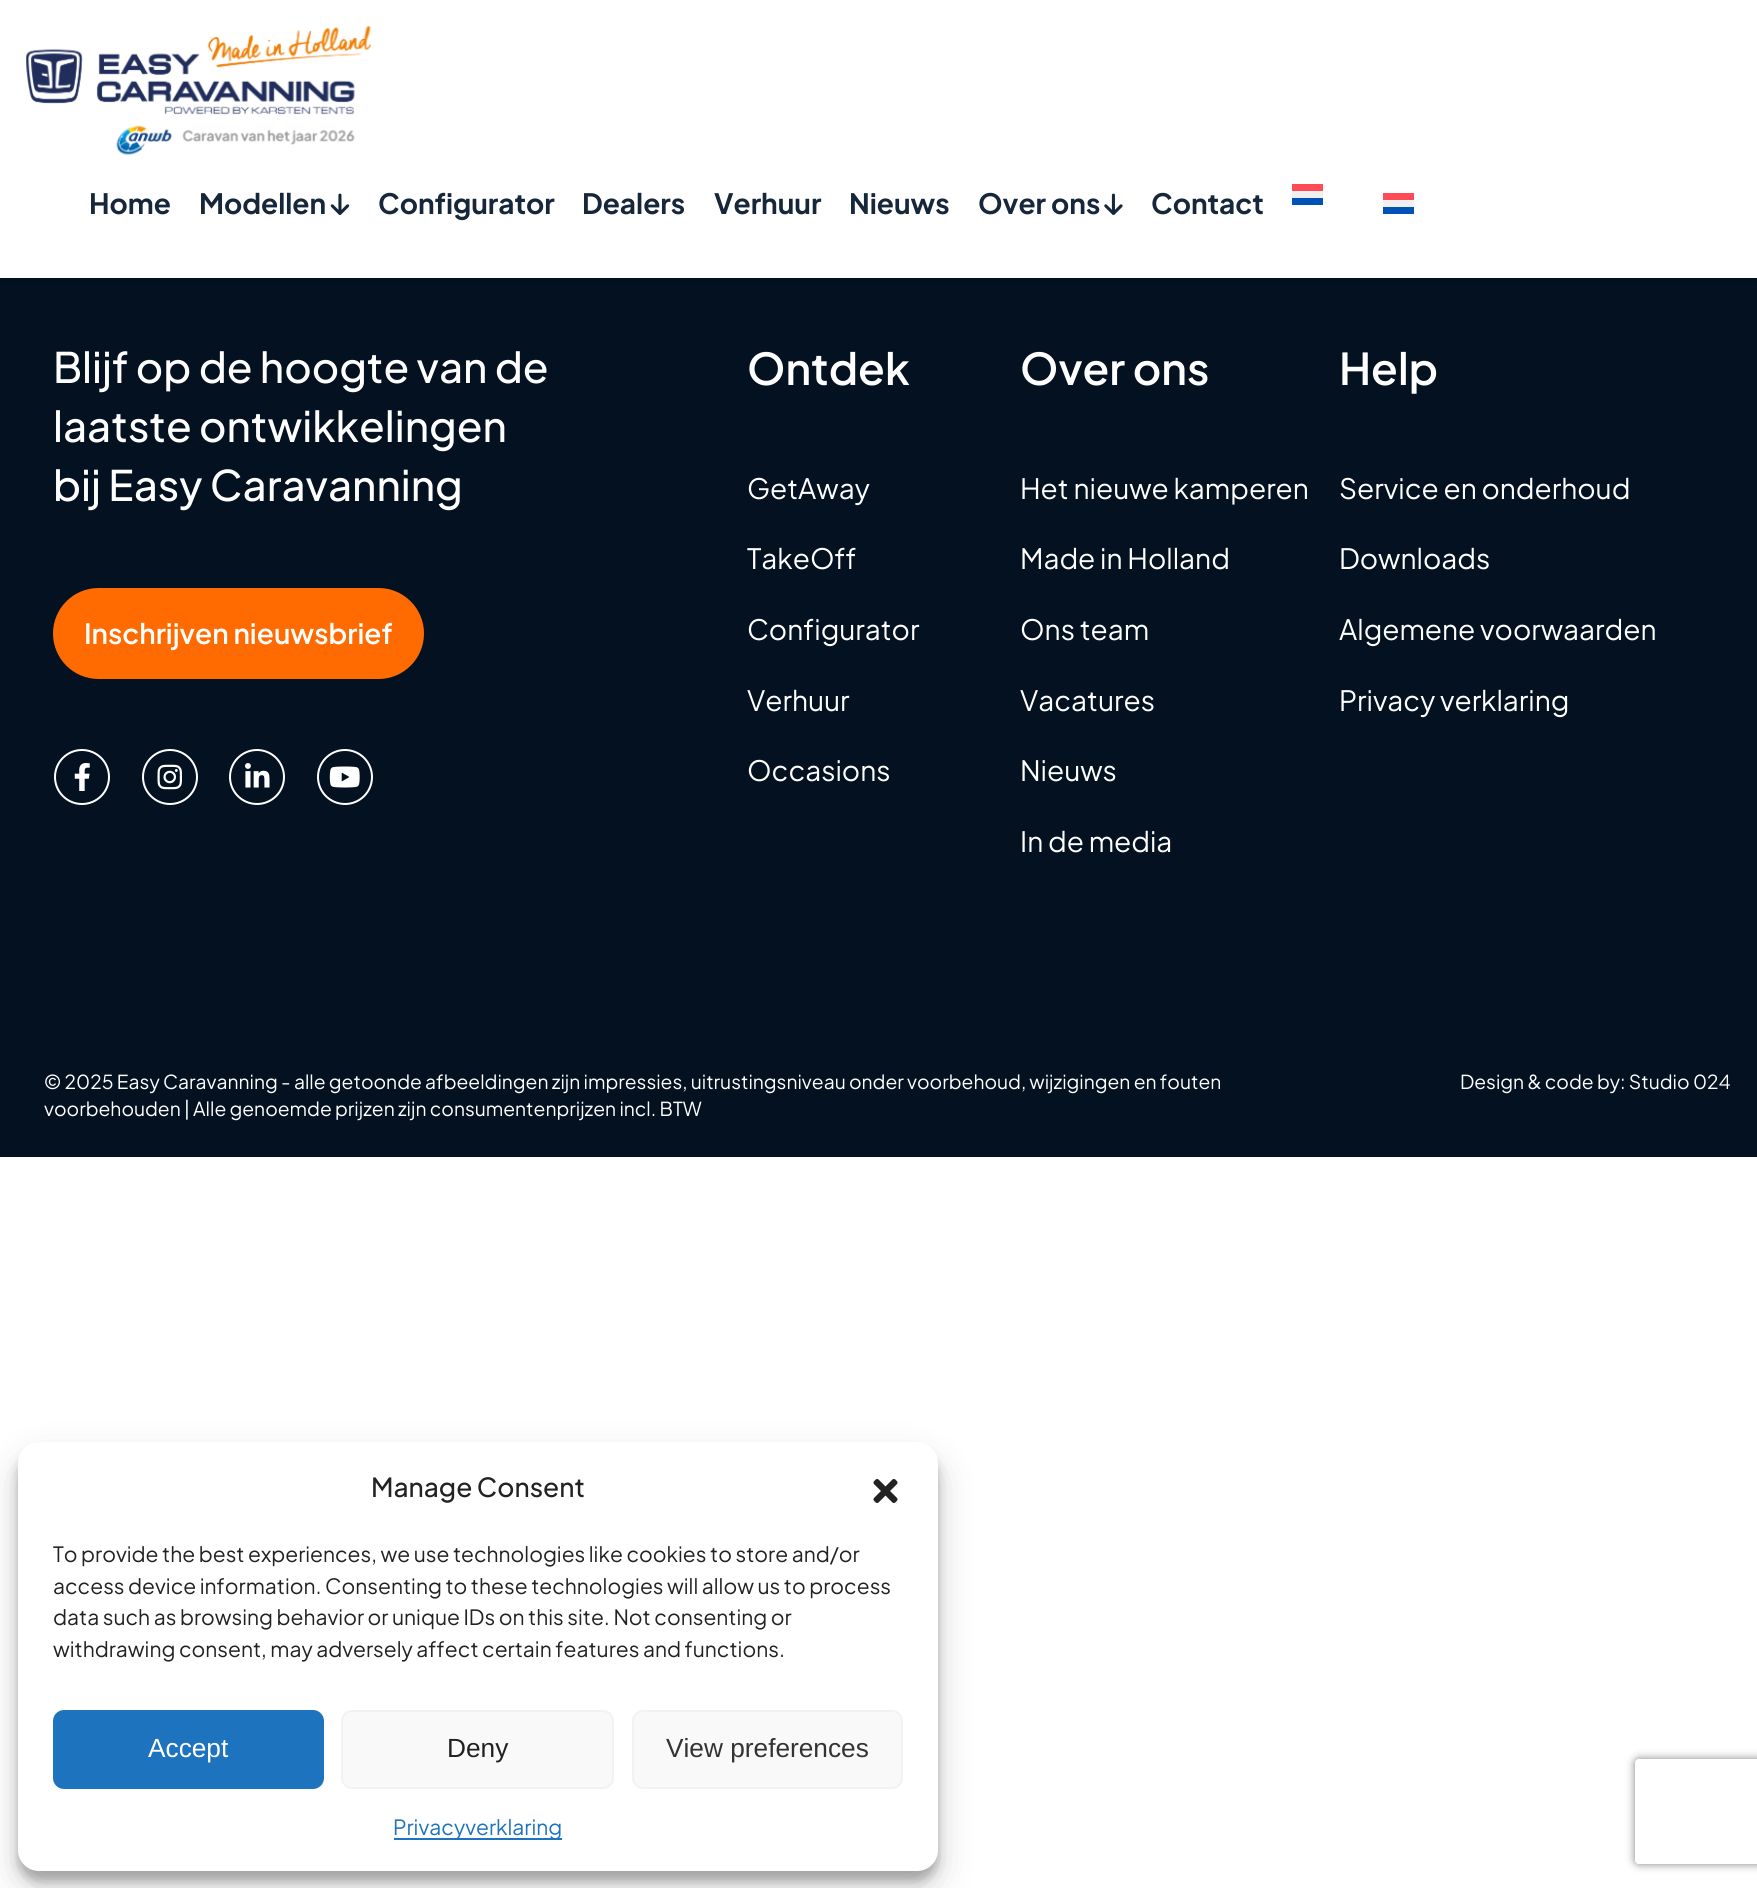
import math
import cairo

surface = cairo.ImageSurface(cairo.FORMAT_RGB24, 1757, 1888)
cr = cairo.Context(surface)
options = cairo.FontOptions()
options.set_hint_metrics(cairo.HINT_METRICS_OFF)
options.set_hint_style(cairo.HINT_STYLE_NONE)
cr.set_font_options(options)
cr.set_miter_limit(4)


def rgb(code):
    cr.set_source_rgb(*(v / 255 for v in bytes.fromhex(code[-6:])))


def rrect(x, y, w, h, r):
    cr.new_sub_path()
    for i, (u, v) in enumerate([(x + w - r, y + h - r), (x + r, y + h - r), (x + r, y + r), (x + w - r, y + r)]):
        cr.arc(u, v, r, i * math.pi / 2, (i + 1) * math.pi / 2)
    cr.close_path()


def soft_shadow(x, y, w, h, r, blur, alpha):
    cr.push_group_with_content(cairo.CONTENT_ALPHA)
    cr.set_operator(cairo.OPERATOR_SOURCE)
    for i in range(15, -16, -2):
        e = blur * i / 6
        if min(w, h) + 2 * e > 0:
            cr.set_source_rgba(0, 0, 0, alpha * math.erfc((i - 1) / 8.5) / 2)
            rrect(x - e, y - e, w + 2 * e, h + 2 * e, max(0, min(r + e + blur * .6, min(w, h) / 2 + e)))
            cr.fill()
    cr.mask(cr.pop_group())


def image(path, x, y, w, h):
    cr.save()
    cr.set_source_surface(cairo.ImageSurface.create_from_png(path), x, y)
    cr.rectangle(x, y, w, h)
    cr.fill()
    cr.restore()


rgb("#ffffff")
cr.paint()
rgb("#031121")
cr.rectangle(0, 278, 1757, 879)
cr.fill()
rgb("#000000")
soft_shadow(0, 4, 1757, 278, 0, 5, 0.1)
rgb("#ffffff")
cr.rectangle(0, 0, 1757, 278)
cr.fill()
image("img/1.png", 26, 26, 345, 129)
image("img/2.png", 330, 193, 20, 22)
image("img/3.png", 1104, 193, 19, 22)
for x, y, w, h, color in [
    (1292, 191, 31, 7, "#f0f0f0"),
    (1292, 198, 31, 7, "#0052b4"),
    (1292, 184, 31, 7, "#ff4b55"),
    (1383, 193, 31, 7, "#ff4b55"),
    (1383, 200, 31, 7, "#f0f0f0"),
    (1383, 207, 31, 7, "#0052b4"),
]:
    rgb(color)
    cr.rectangle(x, y, w, h)
    cr.fill()
rgb("#ff6b00")
rrect(54, 589, 369, 89, 44.5)
cr.fill_preserve()
cr.stroke()
cr.arc(82, 777, 27, 0, 2 * math.pi)
rgb("#ffffff")
cr.stroke()
image("img/4.png", 74, 763, 16, 28)
cr.arc(170, 777, 27, 0, 2 * math.pi)
cr.stroke()
image("img/5.png", 157, 764, 25, 26)
cr.arc(257, 777, 27, 0, 2 * math.pi)
cr.stroke()
image("img/6.png", 245, 763, 25, 25)
cr.arc(345, 777, 27, 0, 2 * math.pi)
cr.stroke()
image("img/7.png", 329, 766, 31, 22)
rgb("#000000")
soft_shadow(18, 1453, 920, 428, 21, 5, 0.23)
soft_shadow(18, 1460, 920, 428, 21, 17.5, 0.19)
rgb("#ffffff")
rrect(18, 1442, 920, 429, 21)
cr.fill()
image("img/8.png", 873, 1479, 25, 24)
rgb("#1e73be")
rrect(54, 1711, 269, 77, 10)
cr.fill_preserve()
cr.stroke()
rgb("#f9f9f9")
rrect(342, 1711, 271, 77, 10)
cr.fill_preserve()
rgb("#f2f2f2")
cr.stroke()
rgb("#f9f9f9")
rrect(633, 1711, 269, 77, 10)
cr.fill_preserve()
rgb("#f2f2f2")
cr.stroke()
rgb("#1e73be")
cr.rectangle(394, 1838, 168, 2)
cr.fill()
cr.save()
cr.set_fill_rule(cairo.FILL_RULE_EVEN_ODD)
cr.new_path()
cr.move_to(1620, 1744)
cr.line_to(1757, 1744)
cr.line_to(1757, 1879)
cr.line_to(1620, 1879)
cr.close_path()
cr.move_to(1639, 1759)
cr.line_to(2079, 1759)
cr.curve_to(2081, 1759, 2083, 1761, 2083, 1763)
cr.line_to(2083, 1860)
cr.curve_to(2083, 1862, 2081, 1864, 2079, 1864)
cr.line_to(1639, 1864)
cr.curve_to(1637, 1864, 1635, 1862, 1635, 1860)
cr.line_to(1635, 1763)
cr.curve_to(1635, 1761, 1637, 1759, 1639, 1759)
cr.close_path()
cr.clip()
rgb("#808080")
soft_shadow(1635, 1759, 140, 105, 4, 4.5, 1)
cr.restore()
cr.select_font_face("Plus Jakarta Sans", cairo.FONT_SLANT_NORMAL, cairo.FONT_WEIGHT_BOLD)
cr.set_font_size(28)
rgb("#16273b")
for x, y, s in [
    (89, 214, "Home"),
    (199, 214, "Modellen"),
    (378, 214, "Configurator"),
    (582, 214, "Dealers"),
    (714, 214, "Verhuur"),
    (849, 214, "Nieuws"),
    (978, 214, "Over ons"),
    (1151, 214, "Contact"),
]:
    cr.move_to(x, y)
    cr.show_text(s)
cr.select_font_face("Plus Jakarta Sans Medium")
cr.set_font_size(42)
rgb("#ffffff")
for x, y, s in [
    (53, 383, "Blijf op de hoogte van de"),
    (53, 442, "laatste ontwikkelingen"),
    (53, 501, "bij Easy Caravanning"),
]:
    cr.move_to(x, y)
    cr.show_text(s)
cr.select_font_face("Plus Jakarta Sans SemiBold")
cr.set_font_size(28)
cr.move_to(84, 644)
cr.show_text("Inschrijven nieuwsbrief")
cr.set_font_size(43.75)
cr.move_to(747, 385)
cr.show_text("Ontdek")
cr.select_font_face("Plus Jakarta Sans")
cr.set_font_size(28)
for x, y, s in [
    (747, 499, "GetAway"),
    (747, 569, "TakeOff"),
    (747, 640, "Configurator"),
    (747, 711, "Verhuur"),
    (747, 781, "Occasions"),
]:
    cr.move_to(x, y)
    cr.show_text(s)
cr.select_font_face("Plus Jakarta Sans SemiBold")
cr.set_font_size(43.75)
cr.move_to(1020, 385)
cr.show_text("Over ons")
cr.select_font_face("Plus Jakarta Sans")
cr.set_font_size(28)
for x, y, s in [
    (1020, 499, "Het nieuwe kamperen"),
    (1020, 569, "Made in Holland"),
    (1020, 640, "Ons team"),
    (1020, 711, "Vacatures"),
    (1020, 781, "Nieuws"),
    (1020, 852, "In de media"),
]:
    cr.move_to(x, y)
    cr.show_text(s)
cr.select_font_face("Plus Jakarta Sans SemiBold")
cr.set_font_size(43.75)
cr.move_to(1339, 385)
cr.show_text("Help")
cr.select_font_face("Plus Jakarta Sans")
cr.set_font_size(28)
for x, y, s in [
    (1339, 499, "Service en onderhoud"),
    (1339, 569, "Downloads"),
    (1339, 640, "Algemene voorwaarden"),
    (1339, 711, "Privacy verklaring"),
]:
    cr.move_to(x, y)
    cr.show_text(s)
cr.set_font_size(19.25)
for x, y, s in [
    (44, 1089, "© 2025 Easy Caravanning - alle getoonde afbeeldingen zijn impressies, uitrustingsniveau onder voorbehoud, wijzigingen en fouten"),
    (44, 1116, "voorbehouden | Alle genoemde prijzen zijn consumentenprijzen incl. BTW"),
    (1460, 1089, "Design & code by: Studio 024"),
]:
    cr.move_to(x, y)
    cr.show_text(s)
cr.select_font_face("Plus Jakarta Sans Medium")
cr.set_font_size(26.25)
rgb("#222222")
cr.move_to(371, 1497)
cr.show_text("Manage Consent")
cr.select_font_face("Plus Jakarta Sans")
cr.set_font_size(21)
for x, y, s in [
    (53, 1562, "To provide the best experiences, we use technologies like cookies to store and/or"),
    (53, 1594, "access device information. Consenting to these technologies will allow us to process"),
    (53, 1625, "data such as browsing behavior or unique IDs on this site. Not consenting or"),
    (53, 1657, "withdrawing consent, may adversely affect certain features and functions."),
]:
    cr.move_to(x, y)
    cr.show_text(s)
cr.select_font_face("Liberation Sans")
cr.set_font_size(26.25)
rgb("#ffffff")
cr.move_to(148, 1757)
cr.show_text("Accept")
rgb("#222222")
cr.move_to(447, 1757)
cr.show_text("Deny")
rgb("#333333")
cr.move_to(666, 1757)
cr.show_text("View preferences")
cr.select_font_face("Plus Jakarta Sans")
cr.set_font_size(21)
rgb("#1e73be")
cr.move_to(393, 1835)
cr.show_text("Privacyverklaring")
surface.write_to_png("page.png")
